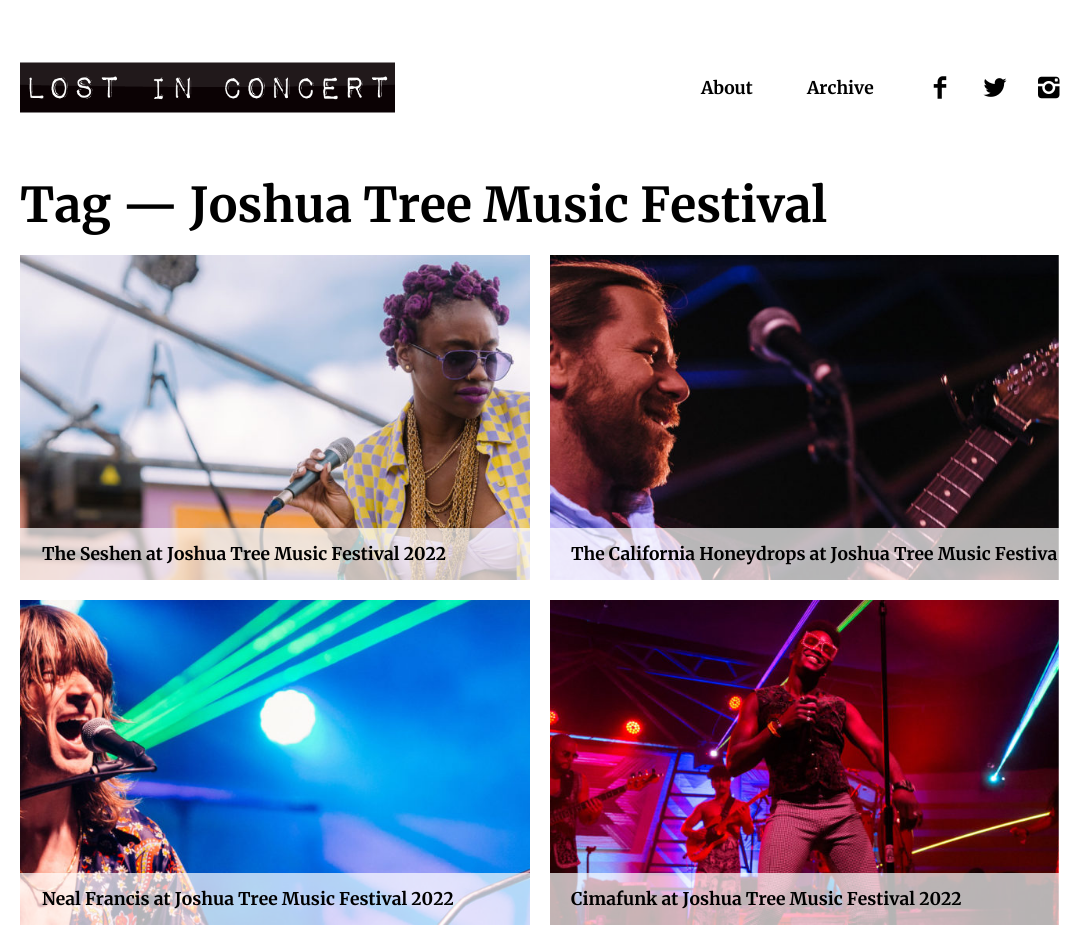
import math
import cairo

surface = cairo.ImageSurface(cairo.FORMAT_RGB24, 1078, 940)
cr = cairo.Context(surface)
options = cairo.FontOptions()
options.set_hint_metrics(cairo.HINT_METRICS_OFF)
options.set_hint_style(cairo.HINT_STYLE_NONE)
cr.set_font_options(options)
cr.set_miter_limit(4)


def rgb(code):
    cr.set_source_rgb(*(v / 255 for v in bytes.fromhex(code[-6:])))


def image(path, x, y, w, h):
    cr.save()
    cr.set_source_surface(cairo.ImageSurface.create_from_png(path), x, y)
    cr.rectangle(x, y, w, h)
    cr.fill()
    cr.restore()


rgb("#ffffff")
cr.paint()
image("img/1.png", 20, 62, 375, 51)
image("img/2.png", 933, 76, 14, 23)
image("img/3.png", 983, 78, 24, 19)
image("img/4.png", 1038, 76, 22, 23)
image("img/5.png", 20, 255, 510, 325)
cr.set_source_rgba(1, 1, 1, 0.7)
cr.rectangle(20, 528, 510, 52)
cr.fill()
image("img/6.png", 550, 255, 509, 325)
cr.rectangle(550, 528, 509, 52)
cr.fill()
image("img/7.png", 20, 600, 510, 325)
cr.rectangle(20, 873, 510, 52)
cr.fill()
image("img/8.png", 550, 600, 509, 325)
cr.rectangle(550, 873, 509, 52)
cr.fill()
cr.select_font_face("Merriweather", cairo.FONT_SLANT_NORMAL, cairo.FONT_WEIGHT_BOLD)
cr.set_font_size(17.5)
rgb("#000000")
cr.move_to(701, 94)
cr.show_text("About")
cr.move_to(807, 94)
cr.show_text("Archive")
cr.set_font_size(48)
cr.move_to(20, 222)
cr.show_text("Tag — Joshua Tree Music Festival")
cr.set_font_size(17.5)
for x, y, s in [
    (42, 560, "The Seshen at Joshua Tree Music Festival 2022"),
    (571, 560, "The California Honeydrops at Joshua Tree Music Festiva"),
    (42, 905, "Neal Francis at Joshua Tree Music Festival 2022"),
    (571, 905, "Cimafunk at Joshua Tree Music Festival 2022"),
]:
    cr.move_to(x, y)
    cr.show_text(s)
surface.write_to_png("page.png")
